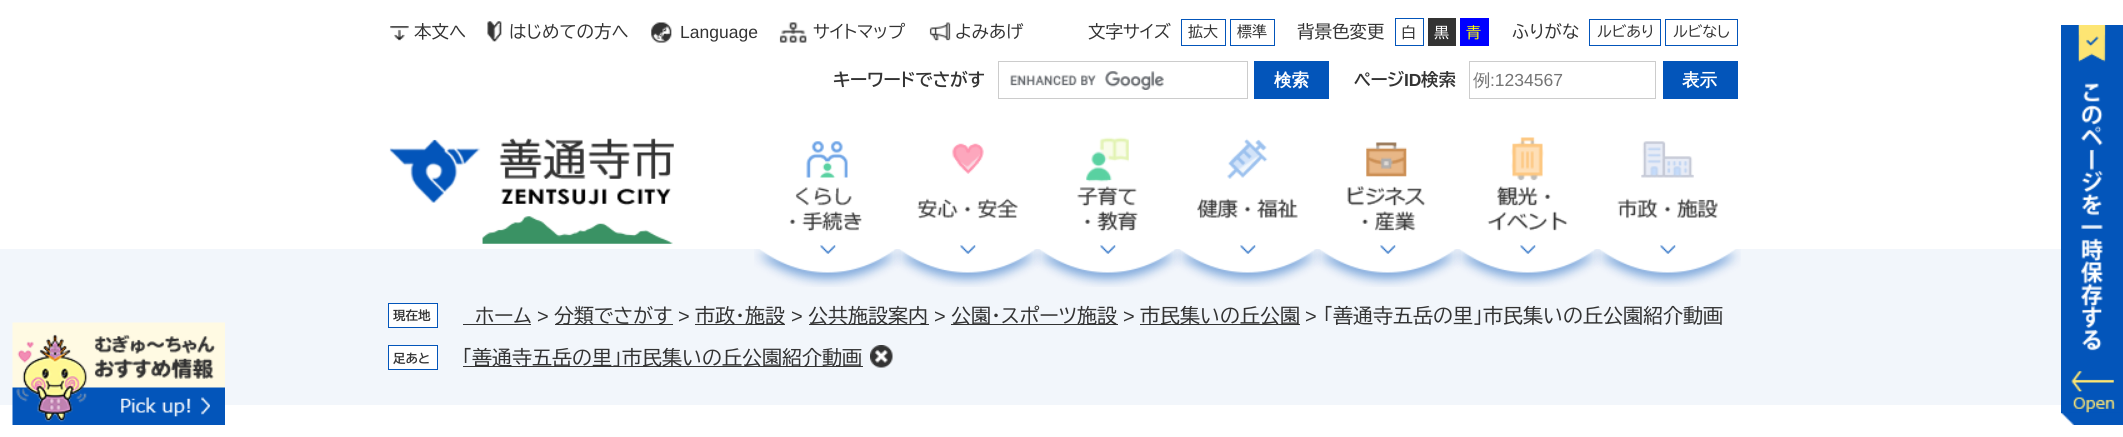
import math
import cairo

surface = cairo.ImageSurface(cairo.FORMAT_RGB24, 2123, 437)
cr = cairo.Context(surface)
options = cairo.FontOptions()
options.set_hint_metrics(cairo.HINT_METRICS_OFF)
options.set_hint_style(cairo.HINT_STYLE_NONE)
cr.set_font_options(options)
cr.set_miter_limit(4)


def rgb(code):
    cr.set_source_rgb(*(v / 255 for v in bytes.fromhex(code[-6:])))


def image(path, x, y, w, h):
    cr.save()
    cr.set_source_surface(cairo.ImageSurface.create_from_png(path), x, y)
    cr.rectangle(x, y, w, h)
    cr.fill()
    cr.restore()


rgb("#ffffff")
cr.paint()
image("img/1.png", 390, 26, 19, 15)
image("img/2.png", 487, 21, 15, 21)
image("img/3.png", 651, 22, 21, 21)
image("img/4.png", 779, 22, 28, 21)
image("img/5.png", 929, 22, 22, 20)
cr.rectangle(1181.5, 19.5, 44, 26)
rgb("#0355ba")
cr.set_line_width(1)
cr.stroke()
cr.rectangle(1230.5, 19.5, 44, 26)
cr.stroke()
cr.rectangle(1395.5, 18.5, 28, 27)
cr.stroke()
rgb("#333333")
cr.rectangle(1428, 18, 28, 28)
cr.fill()
rgb("#0000ff")
cr.rectangle(1460, 18, 29, 28)
cr.fill()
cr.rectangle(1589.5, 19.5, 71, 26)
rgb("#0355ba")
cr.stroke()
cr.rectangle(1665.5, 19.5, 72, 26)
cr.stroke()
image("img/6.png", 1010, 71, 154, 19)
cr.rectangle(998.5, 61.5, 249, 37)
rgb("#cccccc")
cr.stroke()
rgb("#0355ba")
cr.rectangle(1254, 61, 75, 38)
cr.fill()
cr.rectangle(1469.5, 61.5, 186, 37)
rgb("#cccccc")
cr.stroke()
rgb("#0355ba")
cr.rectangle(1663, 61, 75, 38)
cr.fill()
cr.rectangle(2061, 25, 62, 388)
cr.fill()
image("img/7.png", 2071, 25, 44, 388)
image("img/8.png", 2061, 412, 62, 13)
image("img/9.png", 389, 138, 285, 106)
image("img/10.png", 789, 141, 73, 91)
rgb("#f2f6fb")
cr.rectangle(0, 249, 2061, 156)
cr.fill()
image("img/12.png", 754, 249, 147, 38)
image("img/11.png", 820, 245, 16, 9)
image("img/13.png", 917, 143, 101, 76)
image("img/14.png", 894, 249, 147, 38)
image("img/11.png", 960, 245, 16, 9)
image("img/15.png", 1077, 137, 61, 95)
image("img/16.png", 1034, 249, 147, 38)
image("img/11.png", 1100, 245, 16, 9)
image("img/17.png", 1197, 138, 101, 81)
image("img/19.png", 1174, 249, 147, 38)
image("img/18.png", 1240, 245, 16, 9)
image("img/20.png", 1347, 142, 79, 89)
image("img/21.png", 1314, 249, 147, 38)
image("img/18.png", 1380, 245, 16, 9)
image("img/22.png", 1487, 137, 81, 94)
image("img/16.png", 1454, 249, 147, 38)
image("img/18.png", 1520, 245, 16, 9)
image("img/23.png", 1617, 141, 101, 78)
image("img/24.png", 1594, 249, 147, 38)
image("img/18.png", 1660, 245, 16, 9)
image("img/25.png", 12, 322, 213, 103)
image("img/26.png", 201, 397, 9, 18)
rgb("#ffffff")
cr.rectangle(388.5, 303.5, 49, 24)
cr.fill_preserve()
rgb("#0355ba")
cr.stroke()
for x, y, w, h, color in [
    (463, 324, 68, 1, "#333333"),
    (555, 324, 118, 1, "#333333"),
    (695, 324, 90, 1, "#333333"),
    (809, 324, 120, 1, "#333333"),
    (951, 324, 167, 1, "#333333"),
    (1140, 324, 160, 1, "#333333"),
]:
    rgb(color)
    cr.rectangle(x, y, w, h)
    cr.fill()
rgb("#ffffff")
cr.rectangle(388.5, 345.5, 49, 24)
cr.fill_preserve()
rgb("#0355ba")
cr.stroke()
rgb("#333333")
cr.rectangle(463, 366, 400, 1)
cr.fill()
image("img/27.png", 870, 345, 23, 23)
cr.select_font_face("BIZ UDPGothic")
cr.set_font_size(17.5)
cr.move_to(414, 38)
cr.show_text("本文へ")
cr.move_to(509, 38)
cr.show_text("はじめての方へ")
cr.select_font_face("Liberation Sans")
cr.move_to(680, 38)
cr.show_text("Language")
cr.select_font_face("BIZ UDPGothic")
for x, y, s in [
    (813, 38, "サイトマップ"),
    (955, 38, "よみあげ"),
    (1088, 38, "文字サイズ"),
]:
    cr.move_to(x, y)
    cr.show_text(s)
cr.set_font_size(15)
cr.move_to(1188, 37)
cr.show_text("拡大")
cr.move_to(1237, 37)
cr.show_text("標準")
cr.set_font_size(17.5)
cr.move_to(1297, 38)
cr.show_text("背景色変更")
cr.set_font_size(15)
cr.move_to(1401, 38)
cr.show_text("白")
rgb("#ffffff")
cr.move_to(1434, 38)
cr.show_text("黒")
rgb("#ffff00")
cr.move_to(1466, 38)
cr.show_text("青")
cr.set_font_size(17.5)
rgb("#333333")
cr.move_to(1512, 38)
cr.show_text("ふりがな")
cr.set_font_size(15)
cr.move_to(1597, 37)
cr.show_text("ルビあり")
cr.move_to(1673, 37)
cr.show_text("ルビなし")
cr.select_font_face("BIZ UDPGothic", cairo.FONT_SLANT_NORMAL, cairo.FONT_WEIGHT_BOLD)
cr.set_font_size(17.5)
cr.move_to(833, 86)
cr.show_text("キーワードでさがす")
cr.select_font_face("WenQuanYi Zen Hei", cairo.FONT_SLANT_NORMAL, cairo.FONT_WEIGHT_BOLD)
rgb("#ffffff")
cr.move_to(1274, 86)
cr.show_text("検索")
cr.select_font_face("BIZ UDPGothic", cairo.FONT_SLANT_NORMAL, cairo.FONT_WEIGHT_BOLD)
rgb("#333333")
cr.move_to(1354, 86)
cr.show_text("ページ")
cr.select_font_face("Liberation Sans", cairo.FONT_SLANT_NORMAL, cairo.FONT_WEIGHT_BOLD)
cr.move_to(1404, 86)
cr.show_text("ID")
cr.select_font_face("BIZ UDPGothic", cairo.FONT_SLANT_NORMAL, cairo.FONT_WEIGHT_BOLD)
cr.move_to(1421, 86)
cr.show_text("検索")
cr.select_font_face("WenQuanYi Zen Hei Medium")
rgb("#757575")
cr.move_to(1473, 86)
cr.show_text("例")
cr.select_font_face("Liberation Sans")
cr.move_to(1490, 86)
cr.show_text(":1234567")
cr.select_font_face("WenQuanYi Zen Hei", cairo.FONT_SLANT_NORMAL, cairo.FONT_WEIGHT_BOLD)
rgb("#ffffff")
cr.move_to(1682, 86)
cr.show_text("表示")
cr.select_font_face("BIZ UDPGothic", cairo.FONT_SLANT_NORMAL, cairo.FONT_WEIGHT_BOLD)
cr.set_font_size(12.5)
rgb("#333333")
cr.move_to(393, 320)
cr.show_text("現在地")
cr.select_font_face("BIZ UDPGothic")
cr.set_font_size(20)
cr.move_to(475, 323)
cr.show_text("ホーム")
cr.select_font_face("Liberation Sans")
cr.move_to(537, 323)
cr.show_text(">")
cr.select_font_face("BIZ UDPGothic")
cr.move_to(554, 323)
cr.show_text("分類でさがす")
cr.select_font_face("Liberation Sans")
cr.move_to(678, 323)
cr.show_text(">")
cr.select_font_face("BIZ UDPGothic")
cr.move_to(695, 323)
cr.show_text("市政・施設")
cr.select_font_face("Liberation Sans")
cr.move_to(791, 323)
cr.show_text(">")
cr.select_font_face("BIZ UDPGothic")
cr.move_to(808, 323)
cr.show_text("公共施設案内")
cr.select_font_face("Liberation Sans")
cr.move_to(934, 323)
cr.show_text(">")
cr.select_font_face("BIZ UDPGothic")
cr.move_to(951, 323)
cr.show_text("公園・スポーツ施設")
cr.select_font_face("Liberation Sans")
cr.move_to(1123, 323)
cr.show_text(">")
cr.select_font_face("BIZ UDPGothic")
cr.move_to(1140, 323)
cr.show_text("市民集いの丘公園")
cr.select_font_face("Liberation Sans")
cr.move_to(1305, 323)
cr.show_text(">")
cr.select_font_face("BIZ UDPGothic")
cr.move_to(1323, 323)
cr.show_text("「善通寺五岳の里」市民集いの丘公園紹介動画")
cr.select_font_face("BIZ UDPGothic", cairo.FONT_SLANT_NORMAL, cairo.FONT_WEIGHT_BOLD)
cr.set_font_size(12.5)
cr.move_to(393, 363)
cr.show_text("足あと")
cr.select_font_face("BIZ UDPGothic")
cr.set_font_size(20)
cr.move_to(462, 365)
cr.show_text("「善通寺五岳の里」市民集いの丘公園紹介動画")
surface.write_to_png("page.png")
